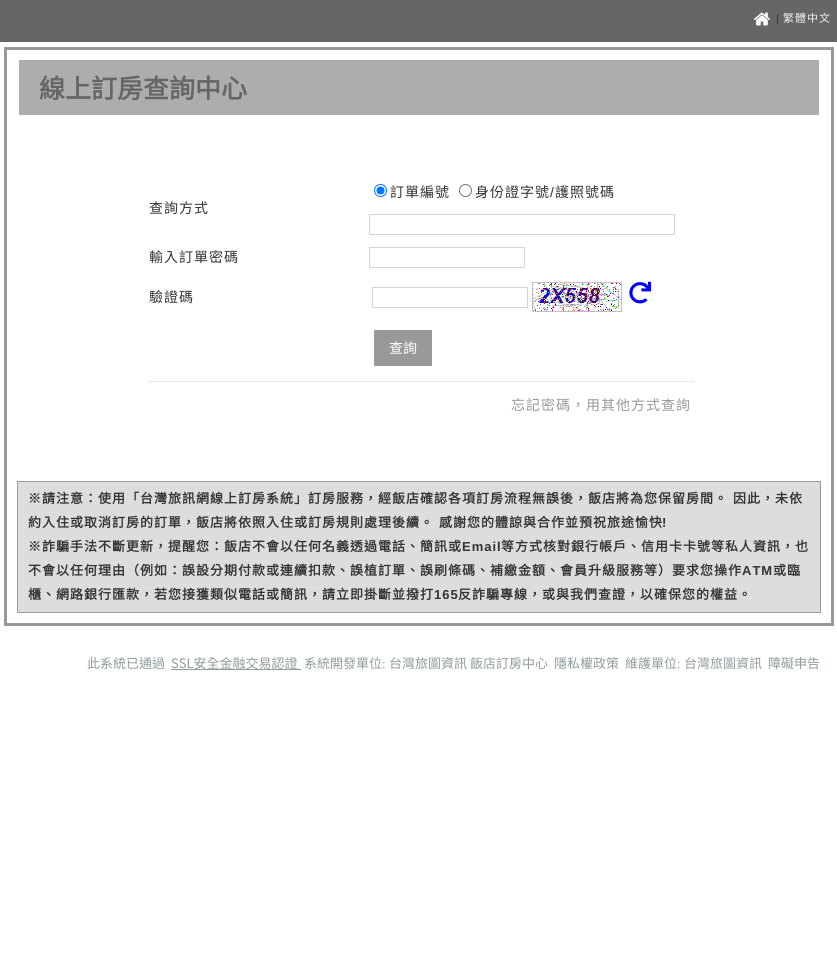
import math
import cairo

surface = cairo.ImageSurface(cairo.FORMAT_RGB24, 837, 965)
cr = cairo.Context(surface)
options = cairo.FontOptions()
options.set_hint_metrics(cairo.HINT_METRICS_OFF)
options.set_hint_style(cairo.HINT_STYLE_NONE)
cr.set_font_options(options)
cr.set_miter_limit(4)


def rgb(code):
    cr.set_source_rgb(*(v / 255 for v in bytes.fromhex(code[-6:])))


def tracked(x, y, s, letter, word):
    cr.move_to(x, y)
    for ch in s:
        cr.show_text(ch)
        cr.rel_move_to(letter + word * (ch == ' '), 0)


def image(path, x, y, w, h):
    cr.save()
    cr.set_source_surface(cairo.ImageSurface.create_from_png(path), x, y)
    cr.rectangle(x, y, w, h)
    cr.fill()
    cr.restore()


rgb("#ffffff")
cr.paint()
rgb("#666666")
cr.rectangle(0, 0, 837, 42)
cr.fill()
image("img/1.png", 754, 12, 16, 14)
cr.rectangle(5.5, 48.5, 827, 576)
rgb("#999999")
cr.set_line_width(3)
cr.stroke()
rgb("#adadad")
cr.rectangle(19, 60, 800, 55)
cr.fill()
cr.arc(380.5, 190.5, 6, 0, 2 * math.pi)
rgb("#0075ff")
cr.set_line_width(1)
cr.stroke()
cr.arc(380.5, 190.5, 4, 0, 2 * math.pi)
cr.fill()
cr.arc(465.5, 190.5, 6, 0, 2 * math.pi)
rgb("#767676")
cr.stroke()
cr.rectangle(369.5, 214.5, 305, 20)
rgb("#d5d5d5")
cr.stroke()
cr.rectangle(369.5, 247.5, 155, 20)
cr.stroke()
cr.rectangle(372.5, 287.5, 155, 20)
cr.stroke()
image("img/2.png", 532, 282, 90, 30)
image("img/3.png", 629, 281, 22, 23)
rgb("#999999")
cr.rectangle(374, 330, 58, 36)
cr.fill()
cr.new_path()
cr.move_to(149, 381.5)
cr.line_to(694, 381.5)
rgb("#d5d5d5")
cr.set_dash([1, 1])
cr.stroke()
rgb("#dddddd")
cr.rectangle(17.5, 481.5, 803, 131)
cr.fill_preserve()
rgb("#999999")
cr.set_dash([])
cr.stroke()
rgb("#909b9e")
cr.rectangle(171, 669, 130, 1)
cr.fill()
cr.select_font_face("Liberation Sans")
cr.set_font_size(11)
rgb("#333333")
tracked(776, 22, "|", 1, 0)
cr.select_font_face("Noto Sans CJK TC")
rgb("#eeeeee")
tracked(783, 22, "繁體中文", 1, 0)
cr.select_font_face("Noto Sans CJK TC", cairo.FONT_SLANT_NORMAL, cairo.FONT_WEIGHT_BOLD)
cr.set_font_size(26)
rgb("#666666")
cr.move_to(39, 98)
cr.show_text("線上訂房查詢中心")
cr.select_font_face("Noto Sans CJK TC")
cr.set_font_size(14)
rgb("#333333")
tracked(390, 197, "訂單編號", 1, 0)
tracked(475, 197, "身份證字號", 1, 0)
cr.select_font_face("Liberation Sans")
tracked(550, 197, "/", 1, 0)
cr.select_font_face("Noto Sans CJK TC")
for x, y, s in [
    (555, 197, "護照號碼"),
    (149, 213, "查詢方式"),
    (149, 262, "輸入訂單密碼"),
    (149, 302, "驗證碼"),
]:
    tracked(x, y, s, 1, 0)
rgb("#ffffff")
cr.move_to(389, 353)
cr.show_text("查詢")
cr.select_font_face("Noto Sans TC")
rgb("#999999")
tracked(511, 410, "忘記密碼，用其他方式查詢", 1, 0)
cr.select_font_face("Noto Sans CJK TC", cairo.FONT_SLANT_NORMAL, cairo.FONT_WEIGHT_BOLD)
cr.set_font_size(13)
rgb("#333333")
tracked(28, 503, "※請注意：使用「台灣旅訊網線上訂房系統」訂房服務，經飯店確認各項訂房流程無誤後，飯店將為您保留房間。 因此，未依", 1, 1)
tracked(28, 527, "約入住或取消訂房的訂單，飯店將依照入住或訂房規則處理後續。 感謝您的體諒與合作並預祝旅途愉快", 1, 1)
cr.select_font_face("Liberation Sans", cairo.FONT_SLANT_NORMAL, cairo.FONT_WEIGHT_BOLD)
tracked(662, 527, "!", 1, 0)
cr.select_font_face("Noto Sans CJK TC", cairo.FONT_SLANT_NORMAL, cairo.FONT_WEIGHT_BOLD)
tracked(28, 551, "※詐騙手法不斷更新，提醒您：飯店不會以任何名義透過電話、簡訊或", 1, 0)
cr.select_font_face("Liberation Sans", cairo.FONT_SLANT_NORMAL, cairo.FONT_WEIGHT_BOLD)
tracked(462, 551, "Email", 1, 0)
cr.select_font_face("Noto Sans CJK TC", cairo.FONT_SLANT_NORMAL, cairo.FONT_WEIGHT_BOLD)
tracked(501, 551, "等方式核對銀行帳戶、信用卡卡號等私人資訊，也", 1, 0)
tracked(28, 575, "不會以任何理由（例如：誤設分期付款或連續扣款、誤植訂單、誤刷條碼、補繳金額、會員升級服務等）要求您操作", 1, 0)
cr.select_font_face("Liberation Sans", cairo.FONT_SLANT_NORMAL, cairo.FONT_WEIGHT_BOLD)
tracked(742, 575, "ATM", 1, 0)
cr.select_font_face("Noto Sans CJK TC", cairo.FONT_SLANT_NORMAL, cairo.FONT_WEIGHT_BOLD)
tracked(773, 575, "或臨", 1, 0)
tracked(28, 599, "櫃、網路銀行匯款，若您接獲類似電話或簡訊，請立即掛斷並撥打", 1, 0)
cr.select_font_face("Liberation Sans", cairo.FONT_SLANT_NORMAL, cairo.FONT_WEIGHT_BOLD)
tracked(434, 599, "165", 1, 0)
cr.select_font_face("Noto Sans CJK TC", cairo.FONT_SLANT_NORMAL, cairo.FONT_WEIGHT_BOLD)
tracked(458, 599, "反詐騙專線，或與我們查證，以確保您的權益。", 1, 0)
cr.select_font_face("Noto Sans CJK TC")
rgb("#909b9e")
cr.move_to(87, 668)
cr.show_text("此系統已通過")
cr.select_font_face("Noto Sans TC")
cr.move_to(171, 668)
cr.show_text("SSL安全金融交易認證")
cr.select_font_face("Noto Sans CJK TC")
cr.move_to(304, 668)
cr.show_text("系統開發單位")
cr.select_font_face("Liberation Serif")
cr.move_to(382, 668)
cr.show_text(":")
cr.select_font_face("Noto Sans CJK TC")
cr.move_to(389, 668)
cr.show_text("台灣旅圖資訊")
cr.move_to(470, 668)
cr.show_text("飯店訂房中心")
cr.select_font_face("Noto Sans TC")
cr.move_to(554, 668)
cr.show_text("隱私權政策")
cr.select_font_face("Noto Sans CJK TC")
cr.move_to(625, 668)
cr.show_text("維護單位")
cr.select_font_face("Liberation Serif")
cr.move_to(677, 668)
cr.show_text(":")
cr.select_font_face("Noto Sans CJK TC")
cr.move_to(684, 668)
cr.show_text("台灣旅圖資訊")
cr.select_font_face("Noto Sans TC")
cr.move_to(768, 668)
cr.show_text("障礙申告")
surface.write_to_png("page.png")
